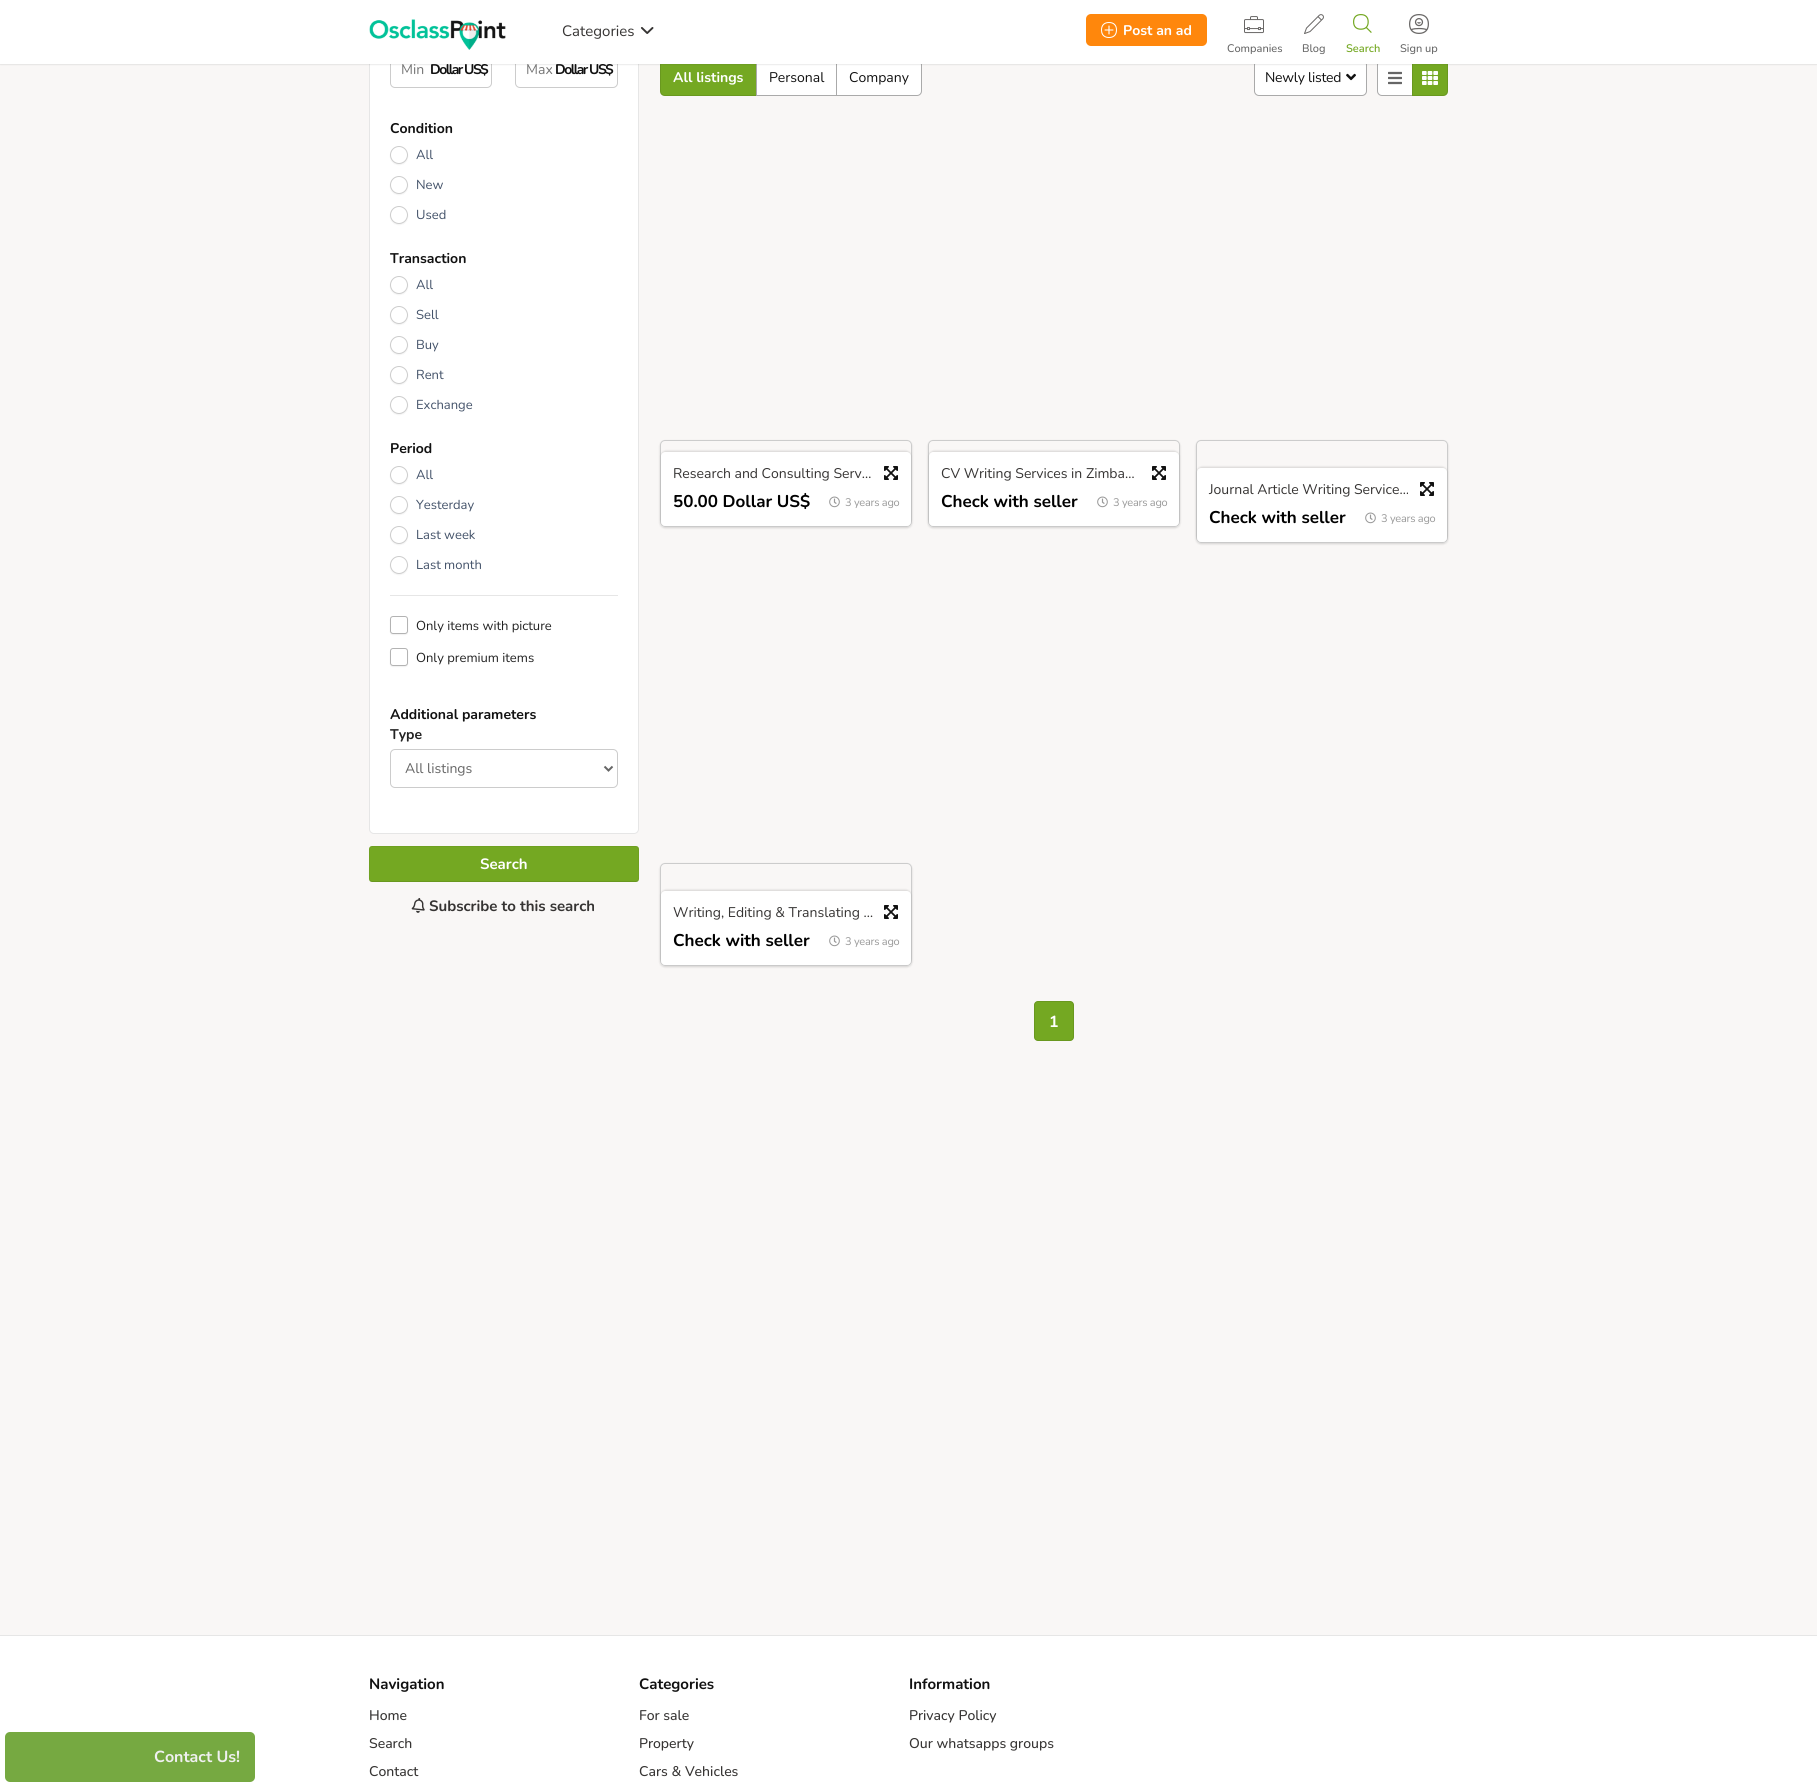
import math
import cairo

surface = cairo.ImageSurface(cairo.FORMAT_RGB24, 1817, 1787)
cr = cairo.Context(surface)
options = cairo.FontOptions()
options.set_hint_metrics(cairo.HINT_METRICS_OFF)
options.set_hint_style(cairo.HINT_STYLE_NONE)
cr.set_font_options(options)
cr.set_miter_limit(4)


def rgb(code):
    cr.set_source_rgb(*(v / 255 for v in bytes.fromhex(code[-6:])))


def tracked(x, y, s, letter, word):
    cr.move_to(x, y)
    for ch in s:
        cr.show_text(ch)
        cr.rel_move_to(letter + word * (ch == ' '), 0)


def rrect(x, y, w, h, r):
    cr.new_sub_path()
    for i, (u, v) in enumerate([(x + w - r, y + h - r), (x + r, y + h - r), (x + r, y + r), (x + w - r, y + r)]):
        cr.arc(u, v, r, i * math.pi / 2, (i + 1) * math.pi / 2)
    cr.close_path()


def soft_shadow(x, y, w, h, r, blur, alpha):
    cr.push_group_with_content(cairo.CONTENT_ALPHA)
    cr.set_operator(cairo.OPERATOR_SOURCE)
    for i in range(15, -16, -2):
        e = blur * i / 6
        if min(w, h) + 2 * e > 0:
            cr.set_source_rgba(0, 0, 0, alpha * math.erfc((i - 1) / 8.5) / 2)
            rrect(x - e, y - e, w + 2 * e, h + 2 * e, max(0, min(r + e + blur * .6, min(w, h) / 2 + e)))
            cr.fill()
    cr.mask(cr.pop_group())


def image(path, x, y, w, h):
    cr.save()
    cr.set_source_surface(cairo.ImageSurface.create_from_png(path), x, y)
    cr.rectangle(x, y, w, h)
    cr.fill()
    cr.restore()


rgb("#f9f7f6")
cr.paint()
rgb("#ffffff")
rrect(369, 11, 270, 823, 5)
cr.fill()
rrect(369.5, 11.5, 269, 822, 4.5)
cr.set_source_rgba(0, 0, 0, 0.1)
cr.set_line_width(1)
cr.stroke()
rrect(390.5, 52.5, 101, 35, 4.5)
rgb("#cccccc")
cr.stroke()
rrect(515.5, 52.5, 102, 35, 4.5)
cr.stroke()
rgb("#74a822")
cr.new_path()
cr.move_to(665, 60)
cr.line_to(757, 60)
cr.line_to(757, 96)
cr.line_to(665, 96)
cr.curve_to(662, 96, 660, 94, 660, 91)
cr.line_to(660, 65)
cr.curve_to(660, 62, 662, 60, 665, 60)
cr.close_path()
cr.fill()
cr.new_path()
cr.move_to(665, 60.5)
cr.line_to(756.5, 60.5)
cr.line_to(756.5, 95.5)
cr.line_to(665, 95.5)
cr.curve_to(662.5, 95.5, 660.5, 93.5, 660.5, 91)
cr.line_to(660.5, 65)
cr.curve_to(660.5, 62.5, 662.5, 60.5, 665, 60.5)
cr.close_path()
cr.set_source_rgba(0, 0, 0, 0.1)
cr.stroke()
rgb("#ffffff")
cr.rectangle(757, 64, 79, 31)
cr.fill()
cr.rectangle(756.5, 60.5, 80, 35)
rgb("#aaaaaa")
cr.stroke()
rgb("#ffffff")
cr.new_path()
cr.move_to(836.5, 60.5)
cr.line_to(917, 60.5)
cr.curve_to(919.5, 60.5, 921.5, 62.5, 921.5, 65)
cr.line_to(921.5, 91)
cr.curve_to(921.5, 93.5, 919.5, 95.5, 917, 95.5)
cr.line_to(836.5, 95.5)
cr.close_path()
cr.fill_preserve()
rgb("#aaaaaa")
cr.stroke()
rgb("#ffffff")
rrect(1254.5, 60.5, 112, 35, 4.5)
cr.fill_preserve()
rgb("#aaaaaa")
cr.stroke()
rgb("#ffffff")
cr.new_path()
cr.move_to(1382, 60.5)
cr.line_to(1412.5, 60.5)
cr.line_to(1412.5, 95.5)
cr.line_to(1382, 95.5)
cr.curve_to(1379.5, 95.5, 1377.5, 93.5, 1377.5, 91)
cr.line_to(1377.5, 65)
cr.curve_to(1377.5, 62.5, 1379.5, 60.5, 1382, 60.5)
cr.close_path()
cr.fill_preserve()
rgb("#aaaaaa")
cr.stroke()
rgb("#74a822")
cr.new_path()
cr.move_to(1412, 60)
cr.line_to(1443, 60)
cr.curve_to(1446, 60, 1448, 62, 1448, 65)
cr.line_to(1448, 91)
cr.curve_to(1448, 94, 1446, 96, 1443, 96)
cr.line_to(1412, 96)
cr.close_path()
cr.fill()
cr.new_path()
cr.move_to(1412.5, 60.5)
cr.line_to(1443, 60.5)
cr.curve_to(1445.5, 60.5, 1447.5, 62.5, 1447.5, 65)
cr.line_to(1447.5, 91)
cr.curve_to(1447.5, 93.5, 1445.5, 95.5, 1443, 95.5)
cr.line_to(1412.5, 95.5)
cr.close_path()
cr.set_source_rgba(0, 0, 0, 0.1)
cr.stroke()
rgb("#363433")
soft_shadow(0, 0, 1817, 64, 0, 1, 0.25)
cr.save()
cr.set_fill_rule(cairo.FILL_RULE_EVEN_ODD)
cr.new_path()
cr.move_to(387, 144)
cr.line_to(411, 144)
cr.line_to(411, 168)
cr.line_to(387, 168)
cr.close_path()
cr.move_to(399, 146)
cr.curve_to(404, 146, 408, 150, 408, 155)
cr.curve_to(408, 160, 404, 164, 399, 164)
cr.curve_to(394, 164, 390, 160, 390, 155)
cr.curve_to(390, 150, 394, 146, 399, 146)
cr.close_path()
cr.clip()
rgb("#000000")
soft_shadow(390, 147, 18, 18, 9, 0.5, 0.05)
cr.restore()
cr.arc(399, 155, 8.5, 0, 2 * math.pi)
cr.set_source_rgba(0, 0, 0, 0.2)
cr.stroke()
cr.save()
cr.set_fill_rule(cairo.FILL_RULE_EVEN_ODD)
cr.new_path()
cr.move_to(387, 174)
cr.line_to(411, 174)
cr.line_to(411, 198)
cr.line_to(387, 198)
cr.close_path()
cr.move_to(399, 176)
cr.curve_to(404, 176, 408, 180, 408, 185)
cr.curve_to(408, 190, 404, 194, 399, 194)
cr.curve_to(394, 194, 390, 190, 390, 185)
cr.curve_to(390, 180, 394, 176, 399, 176)
cr.close_path()
cr.clip()
rgb("#000000")
soft_shadow(390, 177, 18, 18, 9, 0.5, 0.05)
cr.restore()
cr.arc(399, 185, 8.5, 0, 2 * math.pi)
cr.stroke()
cr.save()
cr.set_fill_rule(cairo.FILL_RULE_EVEN_ODD)
cr.new_path()
cr.move_to(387, 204)
cr.line_to(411, 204)
cr.line_to(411, 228)
cr.line_to(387, 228)
cr.close_path()
cr.move_to(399, 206)
cr.curve_to(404, 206, 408, 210, 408, 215)
cr.curve_to(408, 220, 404, 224, 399, 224)
cr.curve_to(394, 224, 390, 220, 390, 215)
cr.curve_to(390, 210, 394, 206, 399, 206)
cr.close_path()
cr.clip()
rgb("#000000")
soft_shadow(390, 207, 18, 18, 9, 0.5, 0.05)
cr.restore()
cr.arc(399, 215, 8.5, 0, 2 * math.pi)
cr.stroke()
cr.save()
cr.set_fill_rule(cairo.FILL_RULE_EVEN_ODD)
cr.new_path()
cr.move_to(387, 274)
cr.line_to(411, 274)
cr.line_to(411, 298)
cr.line_to(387, 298)
cr.close_path()
cr.move_to(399, 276)
cr.curve_to(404, 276, 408, 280, 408, 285)
cr.curve_to(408, 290, 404, 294, 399, 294)
cr.curve_to(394, 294, 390, 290, 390, 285)
cr.curve_to(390, 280, 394, 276, 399, 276)
cr.close_path()
cr.clip()
rgb("#000000")
soft_shadow(390, 277, 18, 18, 9, 0.5, 0.05)
cr.restore()
cr.arc(399, 285, 8.5, 0, 2 * math.pi)
cr.stroke()
cr.save()
cr.set_fill_rule(cairo.FILL_RULE_EVEN_ODD)
cr.new_path()
cr.move_to(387, 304)
cr.line_to(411, 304)
cr.line_to(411, 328)
cr.line_to(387, 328)
cr.close_path()
cr.move_to(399, 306)
cr.curve_to(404, 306, 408, 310, 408, 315)
cr.curve_to(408, 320, 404, 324, 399, 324)
cr.curve_to(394, 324, 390, 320, 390, 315)
cr.curve_to(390, 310, 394, 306, 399, 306)
cr.close_path()
cr.clip()
rgb("#000000")
soft_shadow(390, 307, 18, 18, 9, 0.5, 0.05)
cr.restore()
cr.arc(399, 315, 8.5, 0, 2 * math.pi)
cr.stroke()
cr.save()
cr.set_fill_rule(cairo.FILL_RULE_EVEN_ODD)
cr.new_path()
cr.move_to(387, 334)
cr.line_to(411, 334)
cr.line_to(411, 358)
cr.line_to(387, 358)
cr.close_path()
cr.move_to(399, 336)
cr.curve_to(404, 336, 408, 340, 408, 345)
cr.curve_to(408, 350, 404, 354, 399, 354)
cr.curve_to(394, 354, 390, 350, 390, 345)
cr.curve_to(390, 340, 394, 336, 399, 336)
cr.close_path()
cr.clip()
rgb("#000000")
soft_shadow(390, 337, 18, 18, 9, 0.5, 0.05)
cr.restore()
cr.arc(399, 345, 8.5, 0, 2 * math.pi)
cr.stroke()
cr.save()
cr.set_fill_rule(cairo.FILL_RULE_EVEN_ODD)
cr.new_path()
cr.move_to(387, 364)
cr.line_to(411, 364)
cr.line_to(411, 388)
cr.line_to(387, 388)
cr.close_path()
cr.move_to(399, 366)
cr.curve_to(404, 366, 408, 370, 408, 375)
cr.curve_to(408, 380, 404, 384, 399, 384)
cr.curve_to(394, 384, 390, 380, 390, 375)
cr.curve_to(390, 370, 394, 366, 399, 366)
cr.close_path()
cr.clip()
rgb("#000000")
soft_shadow(390, 367, 18, 18, 9, 0.5, 0.05)
cr.restore()
cr.arc(399, 375, 8.5, 0, 2 * math.pi)
cr.stroke()
cr.save()
cr.set_fill_rule(cairo.FILL_RULE_EVEN_ODD)
cr.new_path()
cr.move_to(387, 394)
cr.line_to(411, 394)
cr.line_to(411, 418)
cr.line_to(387, 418)
cr.close_path()
cr.move_to(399, 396)
cr.curve_to(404, 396, 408, 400, 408, 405)
cr.curve_to(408, 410, 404, 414, 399, 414)
cr.curve_to(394, 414, 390, 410, 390, 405)
cr.curve_to(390, 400, 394, 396, 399, 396)
cr.close_path()
cr.clip()
rgb("#000000")
soft_shadow(390, 397, 18, 18, 9, 0.5, 0.05)
cr.restore()
cr.arc(399, 405, 8.5, 0, 2 * math.pi)
cr.stroke()
cr.save()
cr.set_fill_rule(cairo.FILL_RULE_EVEN_ODD)
cr.new_path()
cr.move_to(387, 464)
cr.line_to(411, 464)
cr.line_to(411, 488)
cr.line_to(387, 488)
cr.close_path()
cr.move_to(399, 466)
cr.curve_to(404, 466, 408, 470, 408, 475)
cr.curve_to(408, 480, 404, 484, 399, 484)
cr.curve_to(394, 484, 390, 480, 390, 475)
cr.curve_to(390, 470, 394, 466, 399, 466)
cr.close_path()
cr.clip()
rgb("#000000")
soft_shadow(390, 467, 18, 18, 9, 0.5, 0.05)
cr.restore()
cr.arc(399, 475, 8.5, 0, 2 * math.pi)
cr.stroke()
cr.save()
cr.set_fill_rule(cairo.FILL_RULE_EVEN_ODD)
cr.new_path()
cr.move_to(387, 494)
cr.line_to(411, 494)
cr.line_to(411, 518)
cr.line_to(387, 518)
cr.close_path()
cr.move_to(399, 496)
cr.curve_to(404, 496, 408, 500, 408, 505)
cr.curve_to(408, 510, 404, 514, 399, 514)
cr.curve_to(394, 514, 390, 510, 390, 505)
cr.curve_to(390, 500, 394, 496, 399, 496)
cr.close_path()
cr.clip()
rgb("#000000")
soft_shadow(390, 497, 18, 18, 9, 0.5, 0.05)
cr.restore()
cr.arc(399, 505, 8.5, 0, 2 * math.pi)
cr.stroke()
cr.save()
cr.set_fill_rule(cairo.FILL_RULE_EVEN_ODD)
cr.new_path()
cr.move_to(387, 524)
cr.line_to(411, 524)
cr.line_to(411, 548)
cr.line_to(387, 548)
cr.close_path()
cr.move_to(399, 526)
cr.curve_to(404, 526, 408, 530, 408, 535)
cr.curve_to(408, 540, 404, 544, 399, 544)
cr.curve_to(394, 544, 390, 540, 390, 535)
cr.curve_to(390, 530, 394, 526, 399, 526)
cr.close_path()
cr.clip()
rgb("#000000")
soft_shadow(390, 527, 18, 18, 9, 0.5, 0.05)
cr.restore()
cr.arc(399, 535, 8.5, 0, 2 * math.pi)
cr.stroke()
cr.save()
cr.set_fill_rule(cairo.FILL_RULE_EVEN_ODD)
cr.new_path()
cr.move_to(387, 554)
cr.line_to(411, 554)
cr.line_to(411, 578)
cr.line_to(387, 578)
cr.close_path()
cr.move_to(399, 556)
cr.curve_to(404, 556, 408, 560, 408, 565)
cr.curve_to(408, 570, 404, 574, 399, 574)
cr.curve_to(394, 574, 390, 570, 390, 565)
cr.curve_to(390, 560, 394, 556, 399, 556)
cr.close_path()
cr.clip()
rgb("#000000")
soft_shadow(390, 557, 18, 18, 9, 0.5, 0.05)
cr.restore()
cr.arc(399, 565, 8.5, 0, 2 * math.pi)
cr.stroke()
rgb("#e6e6e6")
cr.rectangle(390, 595, 228, 1)
cr.fill()
cr.save()
cr.set_fill_rule(cairo.FILL_RULE_EVEN_ODD)
cr.new_path()
cr.move_to(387, 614)
cr.line_to(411, 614)
cr.line_to(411, 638)
cr.line_to(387, 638)
cr.close_path()
cr.move_to(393, 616)
cr.line_to(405, 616)
cr.curve_to(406.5, 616, 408, 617.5, 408, 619)
cr.line_to(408, 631)
cr.curve_to(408, 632.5, 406.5, 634, 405, 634)
cr.line_to(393, 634)
cr.curve_to(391.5, 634, 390, 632.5, 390, 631)
cr.line_to(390, 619)
cr.curve_to(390, 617.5, 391.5, 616, 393, 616)
cr.close_path()
cr.clip()
rgb("#000000")
soft_shadow(390, 617, 18, 18, 3, 0.5, 0.06)
cr.restore()
rrect(390.5, 616.5, 17, 17, 2.5)
cr.set_source_rgba(0, 0, 0, 0.3)
cr.stroke()
cr.save()
cr.set_fill_rule(cairo.FILL_RULE_EVEN_ODD)
cr.new_path()
cr.move_to(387, 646)
cr.line_to(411, 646)
cr.line_to(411, 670)
cr.line_to(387, 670)
cr.close_path()
cr.move_to(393, 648)
cr.line_to(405, 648)
cr.curve_to(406.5, 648, 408, 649.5, 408, 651)
cr.line_to(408, 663)
cr.curve_to(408, 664.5, 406.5, 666, 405, 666)
cr.line_to(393, 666)
cr.curve_to(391.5, 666, 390, 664.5, 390, 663)
cr.line_to(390, 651)
cr.curve_to(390, 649.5, 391.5, 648, 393, 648)
cr.close_path()
cr.clip()
rgb("#000000")
soft_shadow(390, 649, 18, 18, 3, 0.5, 0.06)
cr.restore()
rrect(390.5, 648.5, 17, 17, 2.5)
cr.stroke()
rrect(390.5, 749.5, 227, 38, 4.5)
rgb("#cccccc")
cr.stroke()
cr.new_path()
cr.move_to(604.5, 766.5)
cr.line_to(608.5, 770.5)
cr.line_to(612.5, 766.5)
rgb("#666666")
cr.set_line_width(2)
cr.stroke()
rgb("#74a822")
rrect(369, 846, 270, 36, 3)
cr.fill()
cr.new_path()
cr.move_to(638, 881)
cr.line_to(636, 881.5)
cr.line_to(372, 881.5)
cr.line_to(370, 881)
cr.set_source_rgba(0, 0, 0, 0.1)
cr.set_line_width(1)
cr.stroke()
cr.new_path()
cr.move_to(370, 881)
cr.curve_to(368.5, 879, 369.5, 867, 369.5, 864)
cr.line_to(369.5, 854)
cr.curve_to(369.5, 852.5, 368.5, 846.5, 372, 846.5)
cr.line_to(636, 846.5)
cr.curve_to(639.5, 846.5, 638.5, 852.5, 638.5, 854)
cr.line_to(638.5, 864)
cr.curve_to(638.5, 867, 639.5, 879, 638, 881)
cr.set_source_rgba(0, 0, 0, 0.05)
cr.stroke()
image("img/8.png", 411, 898, 14, 15)
image("img/9.png", 1346, 73, 10, 8)
image("img/10.png", 1388, 71, 14, 14)
image("img/11.png", 1422, 71, 16, 14)
cr.save()
cr.set_fill_rule(cairo.FILL_RULE_EVEN_ODD)
cr.new_path()
cr.move_to(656, 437)
cr.line_to(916, 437)
cr.line_to(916, 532)
cr.line_to(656, 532)
cr.close_path()
cr.move_to(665, 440)
cr.line_to(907, 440)
cr.curve_to(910, 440, 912, 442, 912, 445)
cr.line_to(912, 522)
cr.curve_to(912, 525, 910, 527, 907, 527)
cr.line_to(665, 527)
cr.curve_to(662, 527, 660, 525, 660, 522)
cr.line_to(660, 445)
cr.curve_to(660, 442, 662, 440, 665, 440)
cr.close_path()
cr.clip()
rgb("#000000")
soft_shadow(660, 441, 252, 87, 5, 1, 0.15)
cr.restore()
rrect(660.5, 440.5, 251, 86, 4.5)
rgb("#cccccc")
cr.stroke()
rgb("#000000")
soft_shadow(661, 451, 250, 74, 5, 1, 0.15)
rgb("#ffffff")
cr.new_path()
cr.move_to(665, 452)
cr.line_to(907, 452)
cr.curve_to(909, 452, 911, 454, 911, 456)
cr.line_to(911, 521)
cr.curve_to(911, 524, 909, 526, 906, 526)
cr.line_to(666, 526)
cr.curve_to(663, 526, 661, 524, 661, 521)
cr.line_to(661, 456)
cr.curve_to(661, 454, 663, 452, 665, 452)
cr.close_path()
cr.fill()
image("img/12.png", 884, 466, 14, 14)
image("img/13.png", 829, 496, 11, 12)
cr.save()
cr.set_fill_rule(cairo.FILL_RULE_EVEN_ODD)
cr.new_path()
cr.move_to(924, 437)
cr.line_to(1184, 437)
cr.line_to(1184, 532)
cr.line_to(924, 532)
cr.close_path()
cr.move_to(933, 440)
cr.line_to(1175, 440)
cr.curve_to(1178, 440, 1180, 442, 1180, 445)
cr.line_to(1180, 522)
cr.curve_to(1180, 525, 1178, 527, 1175, 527)
cr.line_to(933, 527)
cr.curve_to(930, 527, 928, 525, 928, 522)
cr.line_to(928, 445)
cr.curve_to(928, 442, 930, 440, 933, 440)
cr.close_path()
cr.clip()
rgb("#000000")
soft_shadow(928, 441, 252, 87, 5, 1, 0.15)
cr.restore()
rrect(928.5, 440.5, 251, 86, 4.5)
rgb("#cccccc")
cr.stroke()
rgb("#000000")
soft_shadow(929, 451, 250, 74, 5, 1, 0.15)
rgb("#ffffff")
cr.new_path()
cr.move_to(933, 452)
cr.line_to(1175, 452)
cr.curve_to(1177, 452, 1179, 454, 1179, 456)
cr.line_to(1179, 521)
cr.curve_to(1179, 524, 1177, 526, 1174, 526)
cr.line_to(934, 526)
cr.curve_to(931, 526, 929, 524, 929, 521)
cr.line_to(929, 456)
cr.curve_to(929, 454, 931, 452, 933, 452)
cr.close_path()
cr.fill()
image("img/12.png", 1152, 466, 14, 14)
image("img/13.png", 1097, 496, 11, 12)
cr.save()
cr.set_fill_rule(cairo.FILL_RULE_EVEN_ODD)
cr.new_path()
cr.move_to(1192, 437)
cr.line_to(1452, 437)
cr.line_to(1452, 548)
cr.line_to(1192, 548)
cr.close_path()
cr.move_to(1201, 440)
cr.line_to(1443, 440)
cr.curve_to(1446, 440, 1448, 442, 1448, 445)
cr.line_to(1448, 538)
cr.curve_to(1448, 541, 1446, 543, 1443, 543)
cr.line_to(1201, 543)
cr.curve_to(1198, 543, 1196, 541, 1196, 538)
cr.line_to(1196, 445)
cr.curve_to(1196, 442, 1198, 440, 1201, 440)
cr.close_path()
cr.clip()
rgb("#000000")
soft_shadow(1196, 441, 252, 103, 5, 1, 0.15)
cr.restore()
rrect(1196.5, 440.5, 251, 102, 4.5)
rgb("#cccccc")
cr.stroke()
rgb("#000000")
soft_shadow(1197, 467, 250, 74, 5, 1, 0.15)
rgb("#ffffff")
cr.new_path()
cr.move_to(1201, 468)
cr.line_to(1443, 468)
cr.curve_to(1445, 468, 1447, 470, 1447, 472)
cr.line_to(1447, 537)
cr.curve_to(1447, 540, 1445, 542, 1442, 542)
cr.line_to(1202, 542)
cr.curve_to(1199, 542, 1197, 540, 1197, 537)
cr.line_to(1197, 472)
cr.curve_to(1197, 470, 1199, 468, 1201, 468)
cr.close_path()
cr.fill()
image("img/12.png", 1420, 482, 14, 14)
image("img/13.png", 1365, 512, 11, 12)
cr.save()
cr.set_fill_rule(cairo.FILL_RULE_EVEN_ODD)
cr.new_path()
cr.move_to(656, 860)
cr.line_to(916, 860)
cr.line_to(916, 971)
cr.line_to(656, 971)
cr.close_path()
cr.move_to(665, 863)
cr.line_to(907, 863)
cr.curve_to(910, 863, 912, 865, 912, 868)
cr.line_to(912, 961)
cr.curve_to(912, 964, 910, 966, 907, 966)
cr.line_to(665, 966)
cr.curve_to(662, 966, 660, 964, 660, 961)
cr.line_to(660, 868)
cr.curve_to(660, 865, 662, 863, 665, 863)
cr.close_path()
cr.clip()
rgb("#000000")
soft_shadow(660, 864, 252, 103, 5, 1, 0.15)
cr.restore()
rrect(660.5, 863.5, 251, 102, 4.5)
rgb("#cccccc")
cr.stroke()
rgb("#000000")
soft_shadow(661, 890, 250, 74, 5, 1, 0.15)
rgb("#ffffff")
cr.new_path()
cr.move_to(665, 891)
cr.line_to(907, 891)
cr.curve_to(909, 891, 911, 893, 911, 895)
cr.line_to(911, 960)
cr.curve_to(911, 963, 909, 965, 906, 965)
cr.line_to(666, 965)
cr.curve_to(663, 965, 661, 963, 661, 960)
cr.line_to(661, 895)
cr.curve_to(661, 893, 663, 891, 665, 891)
cr.close_path()
cr.fill()
image("img/12.png", 884, 905, 14, 14)
image("img/13.png", 829, 935, 11, 12)
rgb("#74a822")
rrect(1034, 1001, 40, 40, 4)
cr.fill()
rrect(1034.5, 1001.5, 39, 39, 3.5)
cr.set_source_rgba(0, 0, 0, 0.1)
cr.stroke()
rgb("#ffffff")
cr.rectangle(0, 1636, 1817, 151)
cr.fill()
rgb("#e6e6e6")
cr.rectangle(0, 1635, 1817, 1)
cr.fill()
rgb("#76a941")
rrect(5, 1732, 250, 50, 5)
cr.fill()
cr.select_font_face("Nunito")
cr.set_font_size(14)
rgb("#757575")
cr.move_to(401, 74)
cr.show_text("Min")
cr.select_font_face("Nunito", cairo.FONT_SLANT_NORMAL, cairo.FONT_WEIGHT_BOLD)
rgb("#111111")
tracked(430, 74, "Dollar US$", -1.5, 0)
cr.select_font_face("Nunito")
rgb("#757575")
cr.move_to(526, 74)
cr.show_text("Max")
cr.select_font_face("Nunito", cairo.FONT_SLANT_NORMAL, cairo.FONT_WEIGHT_BOLD)
rgb("#111111")
tracked(555, 74, "Dollar US$", -1.5, 0)
rgb("#ffffff")
cr.rectangle(0, 0, 1817, 64)
cr.fill()
rgb("#ff870c")
rrect(1086, 14, 121, 32, 5)
cr.fill()
image("img/3.png", 1101, 22, 16, 16)
rgb("#ffffff")
cr.move_to(1123, 35)
cr.show_text("Post an ad")
image("img/4.png", 1244, 16, 20, 18)
cr.select_font_face("Nunito Medium")
cr.set_font_size(11)
rgb("#666666")
cr.move_to(1227, 52)
cr.show_text("Companies")
image("img/5.png", 1304, 14, 20, 20)
cr.move_to(1302, 52)
cr.show_text("Blog")
image("img/6.png", 1353, 14, 19, 19)
cr.select_font_face("Nunito SemiBold")
rgb("#74a822")
cr.move_to(1346, 52)
cr.show_text("Search")
image("img/7.png", 1409, 14, 20, 20)
cr.select_font_face("Nunito Medium")
rgb("#666666")
cr.move_to(1400, 52)
cr.show_text("Sign up")
image("img/1.png", 369, 19, 137, 31)
image("img/2.png", 640, 27, 14, 7)
cr.select_font_face("Nunito")
cr.set_font_size(15)
rgb("#363433")
cr.move_to(562, 36)
cr.show_text("Categories")
cr.select_font_face("Nunito", cairo.FONT_SLANT_NORMAL, cairo.FONT_WEIGHT_BOLD)
cr.set_font_size(14)
rgb("#111111")
cr.move_to(390, 133)
cr.show_text("Condition")
cr.select_font_face("Nunito")
cr.set_font_size(13)
rgb("#435269")
for x, y, s in [
    (416, 159, "All"),
    (416, 189, "New"),
    (416, 219, "Used"),
]:
    cr.move_to(x, y)
    cr.show_text(s)
cr.select_font_face("Nunito", cairo.FONT_SLANT_NORMAL, cairo.FONT_WEIGHT_BOLD)
cr.set_font_size(14)
rgb("#111111")
cr.move_to(390, 263)
cr.show_text("Transaction")
cr.select_font_face("Nunito")
cr.set_font_size(13)
rgb("#435269")
for x, y, s in [
    (416, 289, "All"),
    (416, 319, "Sell"),
    (416, 349, "Buy"),
    (416, 379, "Rent"),
    (416, 409, "Exchange"),
]:
    cr.move_to(x, y)
    cr.show_text(s)
cr.select_font_face("Nunito", cairo.FONT_SLANT_NORMAL, cairo.FONT_WEIGHT_BOLD)
cr.set_font_size(14)
rgb("#111111")
cr.move_to(390, 453)
cr.show_text("Period")
cr.select_font_face("Nunito")
cr.set_font_size(13)
rgb("#435269")
for x, y, s in [
    (416, 479, "All"),
    (416, 509, "Yesterday"),
    (416, 539, "Last week"),
    (416, 569, "Last month"),
]:
    cr.move_to(x, y)
    cr.show_text(s)
rgb("#222222")
cr.move_to(416, 630)
cr.show_text("Only items with picture")
cr.move_to(416, 662)
cr.show_text("Only premium items")
cr.select_font_face("Nunito", cairo.FONT_SLANT_NORMAL, cairo.FONT_WEIGHT_BOLD)
cr.set_font_size(14)
rgb("#111111")
cr.move_to(390, 719)
cr.show_text("Additional parameters")
rgb("#222222")
cr.move_to(390, 739)
cr.show_text("Type")
cr.select_font_face("Nunito")
rgb("#666666")
cr.move_to(405, 773)
cr.show_text("All listings")
cr.select_font_face("Nunito", cairo.FONT_SLANT_NORMAL, cairo.FONT_WEIGHT_BOLD)
cr.set_font_size(15)
rgb("#ffffff")
cr.move_to(480, 869)
cr.show_text("Search")
rgb("#363433")
cr.move_to(429, 911)
cr.show_text("Subscribe to this search")
cr.set_font_size(14)
rgb("#ffffff")
cr.move_to(673, 82)
cr.show_text("All listings")
cr.select_font_face("Nunito")
rgb("#111111")
cr.move_to(769, 82)
cr.show_text("Personal")
cr.move_to(849, 82)
cr.show_text("Company")
tracked(1265, 82, "Newly listed", -0.25, 0)
rgb("#363433")
cr.move_to(673, 478)
cr.show_text("Research and Consulting Serv…")
cr.select_font_face("Nunito", cairo.FONT_SLANT_NORMAL, cairo.FONT_WEIGHT_BOLD)
cr.set_font_size(17)
rgb("#000000")
cr.move_to(673, 507)
cr.show_text("50.00 Dollar US$")
cr.select_font_face("Nunito")
cr.set_font_size(11)
rgb("#999999")
tracked(845, 506, "3 years ago", -0.25, 0)
cr.set_font_size(14)
rgb("#363433")
cr.move_to(941, 478)
cr.show_text("CV Writing Services in Zimba…")
cr.select_font_face("Nunito", cairo.FONT_SLANT_NORMAL, cairo.FONT_WEIGHT_BOLD)
cr.set_font_size(17)
rgb("#000000")
cr.move_to(941, 507)
cr.show_text("Check with seller")
cr.select_font_face("Nunito")
cr.set_font_size(11)
rgb("#999999")
tracked(1113, 506, "3 years ago", -0.25, 0)
cr.set_font_size(14)
rgb("#363433")
cr.move_to(1209, 494)
cr.show_text("Journal Article Writing Service…")
cr.select_font_face("Nunito", cairo.FONT_SLANT_NORMAL, cairo.FONT_WEIGHT_BOLD)
cr.set_font_size(17)
rgb("#000000")
cr.move_to(1209, 523)
cr.show_text("Check with seller")
cr.select_font_face("Nunito")
cr.set_font_size(11)
rgb("#999999")
tracked(1381, 522, "3 years ago", -0.25, 0)
cr.set_font_size(14)
rgb("#363433")
cr.move_to(673, 917)
cr.show_text("Writing, Editing & Translating …")
cr.select_font_face("Nunito", cairo.FONT_SLANT_NORMAL, cairo.FONT_WEIGHT_BOLD)
cr.set_font_size(17)
rgb("#000000")
cr.move_to(673, 946)
cr.show_text("Check with seller")
cr.select_font_face("Nunito")
cr.set_font_size(11)
rgb("#999999")
tracked(845, 945, "3 years ago", -0.25, 0)
cr.select_font_face("Nunito", cairo.FONT_SLANT_NORMAL, cairo.FONT_WEIGHT_BOLD)
cr.set_font_size(16)
rgb("#ffffff")
cr.move_to(1049, 1027)
cr.show_text("1")
cr.set_font_size(15)
rgb("#111111")
cr.move_to(369, 1689)
cr.show_text("Navigation")
cr.select_font_face("Nunito Medium")
cr.set_font_size(14)
rgb("#363433")
for x, y, s in [
    (369, 1720, "Home"),
    (369, 1748, "Search"),
    (369, 1776, "Contact"),
]:
    cr.move_to(x, y)
    cr.show_text(s)
cr.select_font_face("Nunito", cairo.FONT_SLANT_NORMAL, cairo.FONT_WEIGHT_BOLD)
cr.set_font_size(15)
rgb("#111111")
cr.move_to(639, 1689)
cr.show_text("Categories")
cr.select_font_face("Nunito Medium")
cr.set_font_size(14)
rgb("#363433")
for x, y, s in [
    (639, 1720, "For sale"),
    (639, 1748, "Property"),
    (639, 1776, "Cars & Vehicles"),
]:
    cr.move_to(x, y)
    cr.show_text(s)
cr.select_font_face("Nunito", cairo.FONT_SLANT_NORMAL, cairo.FONT_WEIGHT_BOLD)
cr.set_font_size(15)
rgb("#111111")
cr.move_to(909, 1689)
cr.show_text("Information")
cr.select_font_face("Nunito Medium")
cr.set_font_size(14)
rgb("#363433")
cr.move_to(909, 1720)
cr.show_text("Privacy Policy")
cr.move_to(909, 1748)
cr.show_text("Our whatsapps groups")
cr.select_font_face("Nunito", cairo.FONT_SLANT_NORMAL, cairo.FONT_WEIGHT_BOLD)
cr.set_font_size(16)
rgb("#f0f0f0")
cr.move_to(154, 1762)
cr.show_text("Contact Us!")
surface.write_to_png("page.png")
